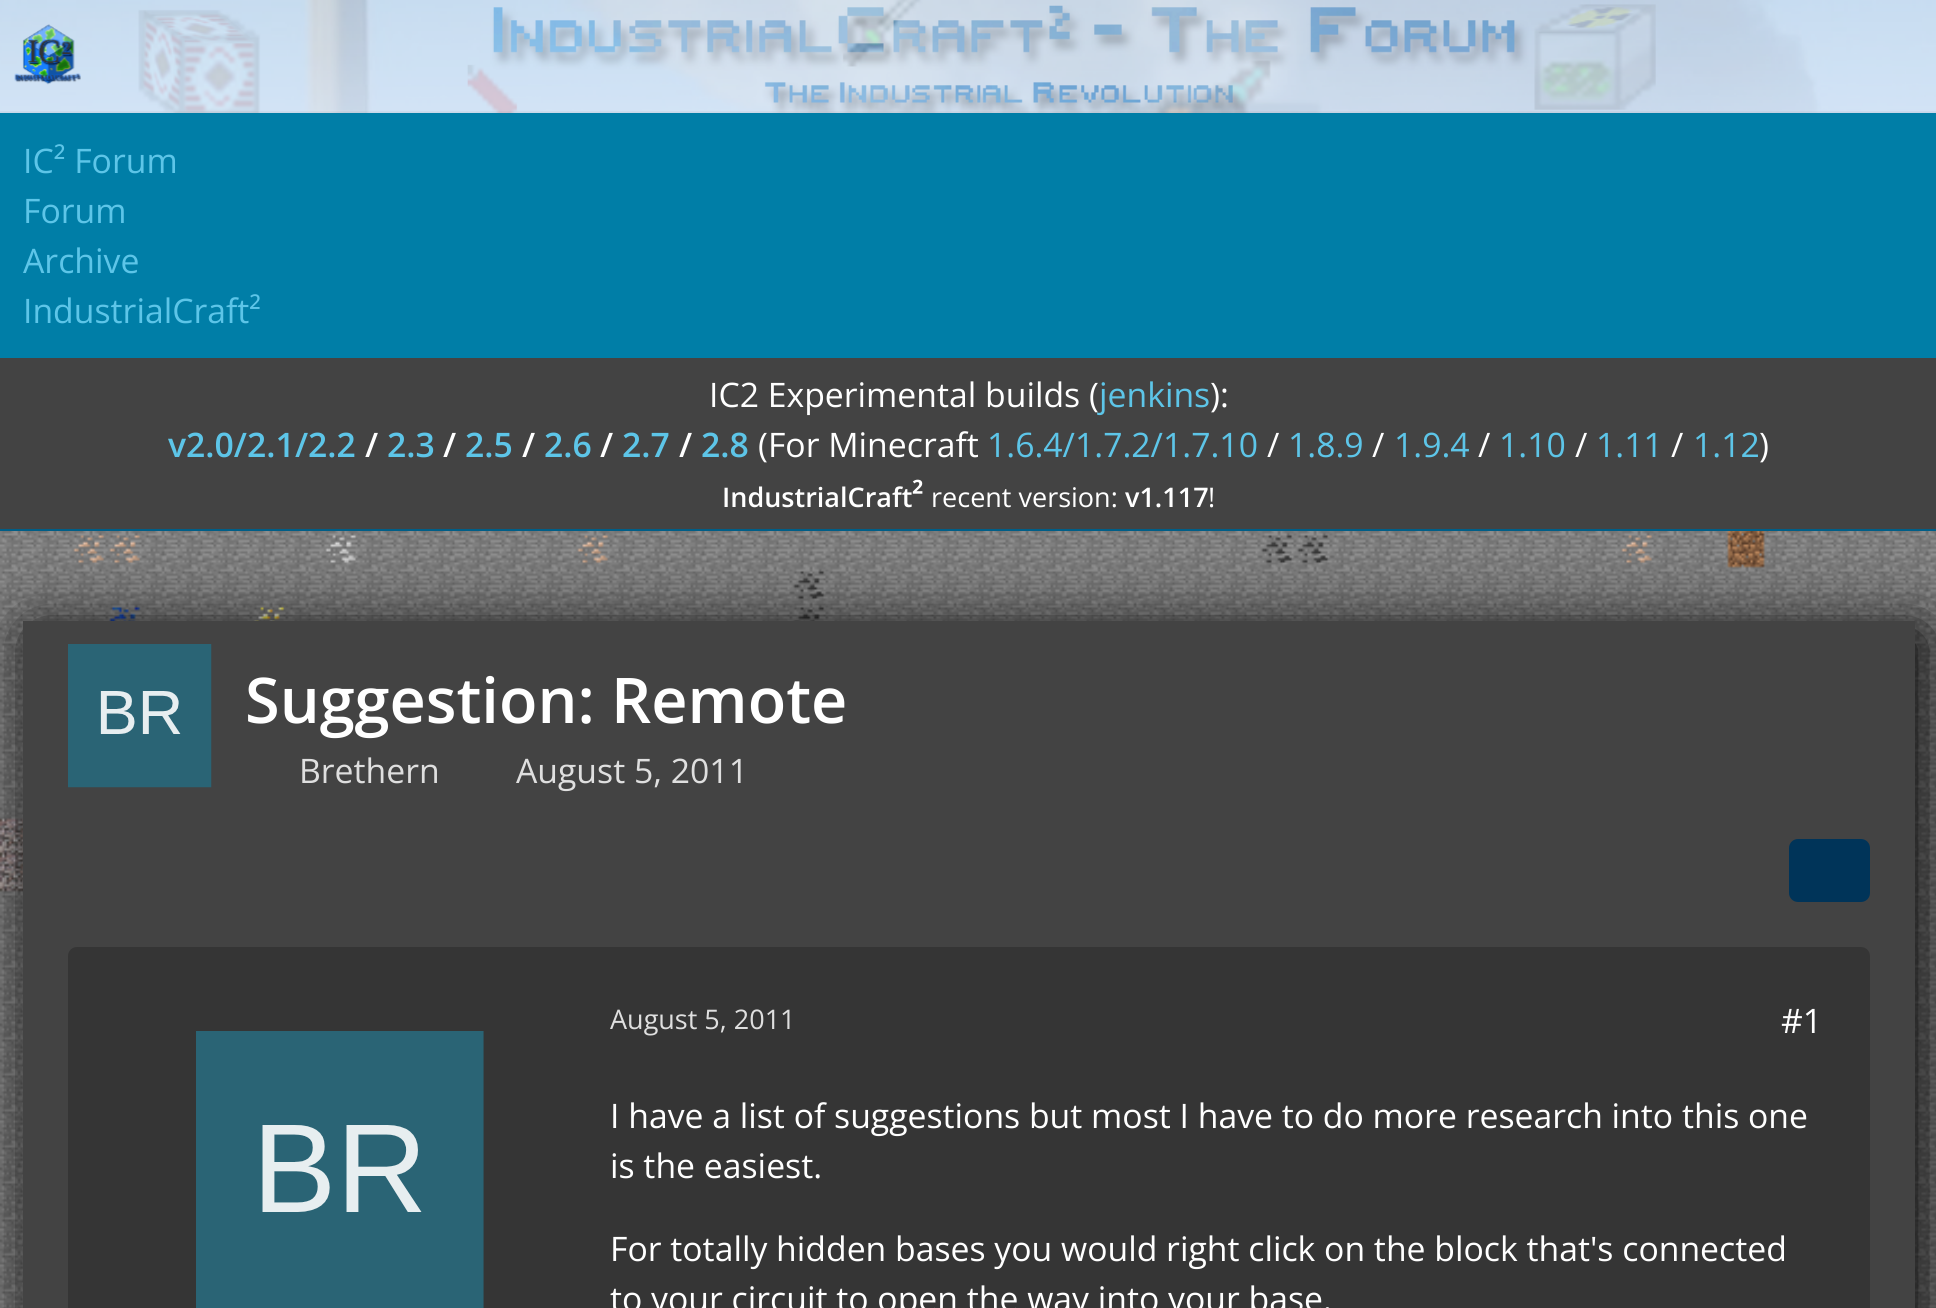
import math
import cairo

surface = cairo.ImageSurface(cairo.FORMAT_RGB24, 1936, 1308)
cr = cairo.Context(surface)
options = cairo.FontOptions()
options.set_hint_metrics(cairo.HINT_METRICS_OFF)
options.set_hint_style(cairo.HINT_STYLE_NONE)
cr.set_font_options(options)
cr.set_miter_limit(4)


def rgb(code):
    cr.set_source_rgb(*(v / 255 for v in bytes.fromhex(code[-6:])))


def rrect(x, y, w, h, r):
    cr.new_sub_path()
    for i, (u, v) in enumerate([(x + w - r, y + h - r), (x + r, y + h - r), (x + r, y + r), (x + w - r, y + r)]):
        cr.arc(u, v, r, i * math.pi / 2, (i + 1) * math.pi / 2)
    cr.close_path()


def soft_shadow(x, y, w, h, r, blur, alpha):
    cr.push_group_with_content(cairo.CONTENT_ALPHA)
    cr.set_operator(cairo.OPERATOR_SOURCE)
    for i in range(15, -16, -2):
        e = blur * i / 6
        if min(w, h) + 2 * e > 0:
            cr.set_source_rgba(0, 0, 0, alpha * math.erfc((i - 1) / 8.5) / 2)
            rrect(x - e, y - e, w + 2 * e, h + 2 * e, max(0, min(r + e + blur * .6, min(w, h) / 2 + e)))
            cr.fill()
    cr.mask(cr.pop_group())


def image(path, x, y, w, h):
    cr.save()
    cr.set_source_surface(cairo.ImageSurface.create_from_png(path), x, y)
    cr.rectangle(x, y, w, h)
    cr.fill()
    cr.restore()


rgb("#434343")
cr.paint()
image("img/1.png", 0, 0, 1936, 113)
image("img/2.png", 14, 24, 67, 61)
rgb("#007ea7")
cr.rectangle(0, 113, 1936, 245)
cr.fill()
rgb("#005e87")
cr.rectangle(0, 529, 1936, 2)
cr.fill()
image("img/3.png", 0, 531, 1936, 777)
rgb("#000000")
soft_shadow(32, 632, 1892, 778, 0, 34, 1)
rgb("#434343")
cr.rectangle(23, 621, 1892, 687)
cr.fill()
image("img/4.png", 68, 644, 144, 144)
rgb("#003459")
rrect(1789, 839, 81, 63, 9)
cr.fill()
rgb("#353535")
rrect(69, 948, 1800, 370, 8)
cr.fill_preserve()
cr.stroke()
image("img/5.png", 196, 1031, 288, 277)
cr.select_font_face("Open Sans")
cr.set_font_size(33.75)
rgb("#5dc5e8")
for x, y, s in [
    (23, 173, "IC² Forum"),
    (23, 223, "Forum"),
    (23, 273, "Archive"),
    (23, 323, "IndustrialCraft²"),
]:
    cr.move_to(x, y)
    cr.show_text(s)
rgb("#ffffff")
cr.move_to(709, 407)
cr.show_text("IC2 Experimental builds (")
rgb("#5dc5e8")
cr.move_to(1099, 407)
cr.show_text("jenkins")
rgb("#ffffff")
cr.move_to(1210, 407)
cr.show_text("):")
cr.select_font_face("Open Sans SemiBold")
rgb("#5dc5e8")
cr.move_to(168, 457)
cr.show_text("v2.0/2.1/2.2")
rgb("#ffffff")
cr.move_to(365, 457)
cr.show_text("/")
rgb("#5dc5e8")
cr.move_to(387, 457)
cr.show_text("2.3")
rgb("#ffffff")
cr.move_to(443, 457)
cr.show_text("/")
rgb("#5dc5e8")
cr.move_to(465, 457)
cr.show_text("2.5")
rgb("#ffffff")
cr.move_to(522, 457)
cr.show_text("/")
rgb("#5dc5e8")
cr.move_to(544, 457)
cr.show_text("2.6")
rgb("#ffffff")
cr.move_to(600, 457)
cr.show_text("/")
rgb("#5dc5e8")
cr.move_to(622, 457)
cr.show_text("2.7")
rgb("#ffffff")
cr.move_to(679, 457)
cr.show_text("/")
rgb("#5dc5e8")
cr.move_to(701, 457)
cr.show_text("2.8")
cr.select_font_face("Open Sans")
rgb("#ffffff")
cr.move_to(758, 457)
cr.show_text("(For Minecraft")
rgb("#5dc5e8")
cr.move_to(987, 457)
cr.show_text("1.6.4/1.7.2/1.7.10")
rgb("#ffffff")
cr.move_to(1267, 457)
cr.show_text("/")
rgb("#5dc5e8")
cr.move_to(1288, 457)
cr.show_text("1.8.9")
rgb("#ffffff")
cr.move_to(1372, 457)
cr.show_text("/")
rgb("#5dc5e8")
cr.move_to(1394, 457)
cr.show_text("1.9.4")
rgb("#ffffff")
cr.move_to(1478, 457)
cr.show_text("/")
rgb("#5dc5e8")
cr.move_to(1499, 457)
cr.show_text("1.10")
rgb("#ffffff")
cr.move_to(1575, 457)
cr.show_text("/")
rgb("#5dc5e8")
cr.move_to(1596, 457)
cr.show_text("1.11")
rgb("#ffffff")
cr.move_to(1671, 457)
cr.show_text("/")
rgb("#5dc5e8")
cr.move_to(1693, 457)
cr.show_text("1.12")
rgb("#ffffff")
cr.move_to(1759, 457)
cr.show_text(")")
cr.select_font_face("Open Sans SemiBold")
cr.set_font_size(27)
cr.move_to(722, 507)
cr.show_text("IndustrialCraft")
cr.set_font_size(32)
cr.move_to(912, 507)
cr.show_text("²")
cr.select_font_face("Open Sans")
cr.set_font_size(27)
cr.move_to(931, 507)
cr.show_text("recent version:")
cr.select_font_face("Open Sans SemiBold")
cr.move_to(1125, 507)
cr.show_text("v1.117")
cr.select_font_face("Open Sans")
cr.move_to(1208, 507)
cr.show_text("!")
cr.select_font_face("Open Sans SemiBold")
cr.set_font_size(63)
cr.move_to(245, 723)
cr.show_text("Suggestion: Remote")
cr.select_font_face("Open Sans")
cr.set_font_size(33.75)
rgb("#dfdfdf")
cr.move_to(299, 783)
cr.show_text("Brethern")
cr.move_to(516, 783)
cr.show_text("August 5, 2011")
cr.set_font_size(27)
cr.move_to(610, 1029)
cr.show_text("August 5, 2011")
cr.set_font_size(33.75)
rgb("#ffffff")
for x, y, s in [
    (1781, 1033, "#1"),
    (610, 1128, "I have a list of suggestions but most I have to do more research into this one"),
    (610, 1178, "is the easiest."),
    (610, 1261, "For totally hidden bases you would right click on the block that's connected"),
    (610, 1311, "to your circuit to open the way into your base."),
]:
    cr.move_to(x, y)
    cr.show_text(s)
surface.write_to_png("page.png")
